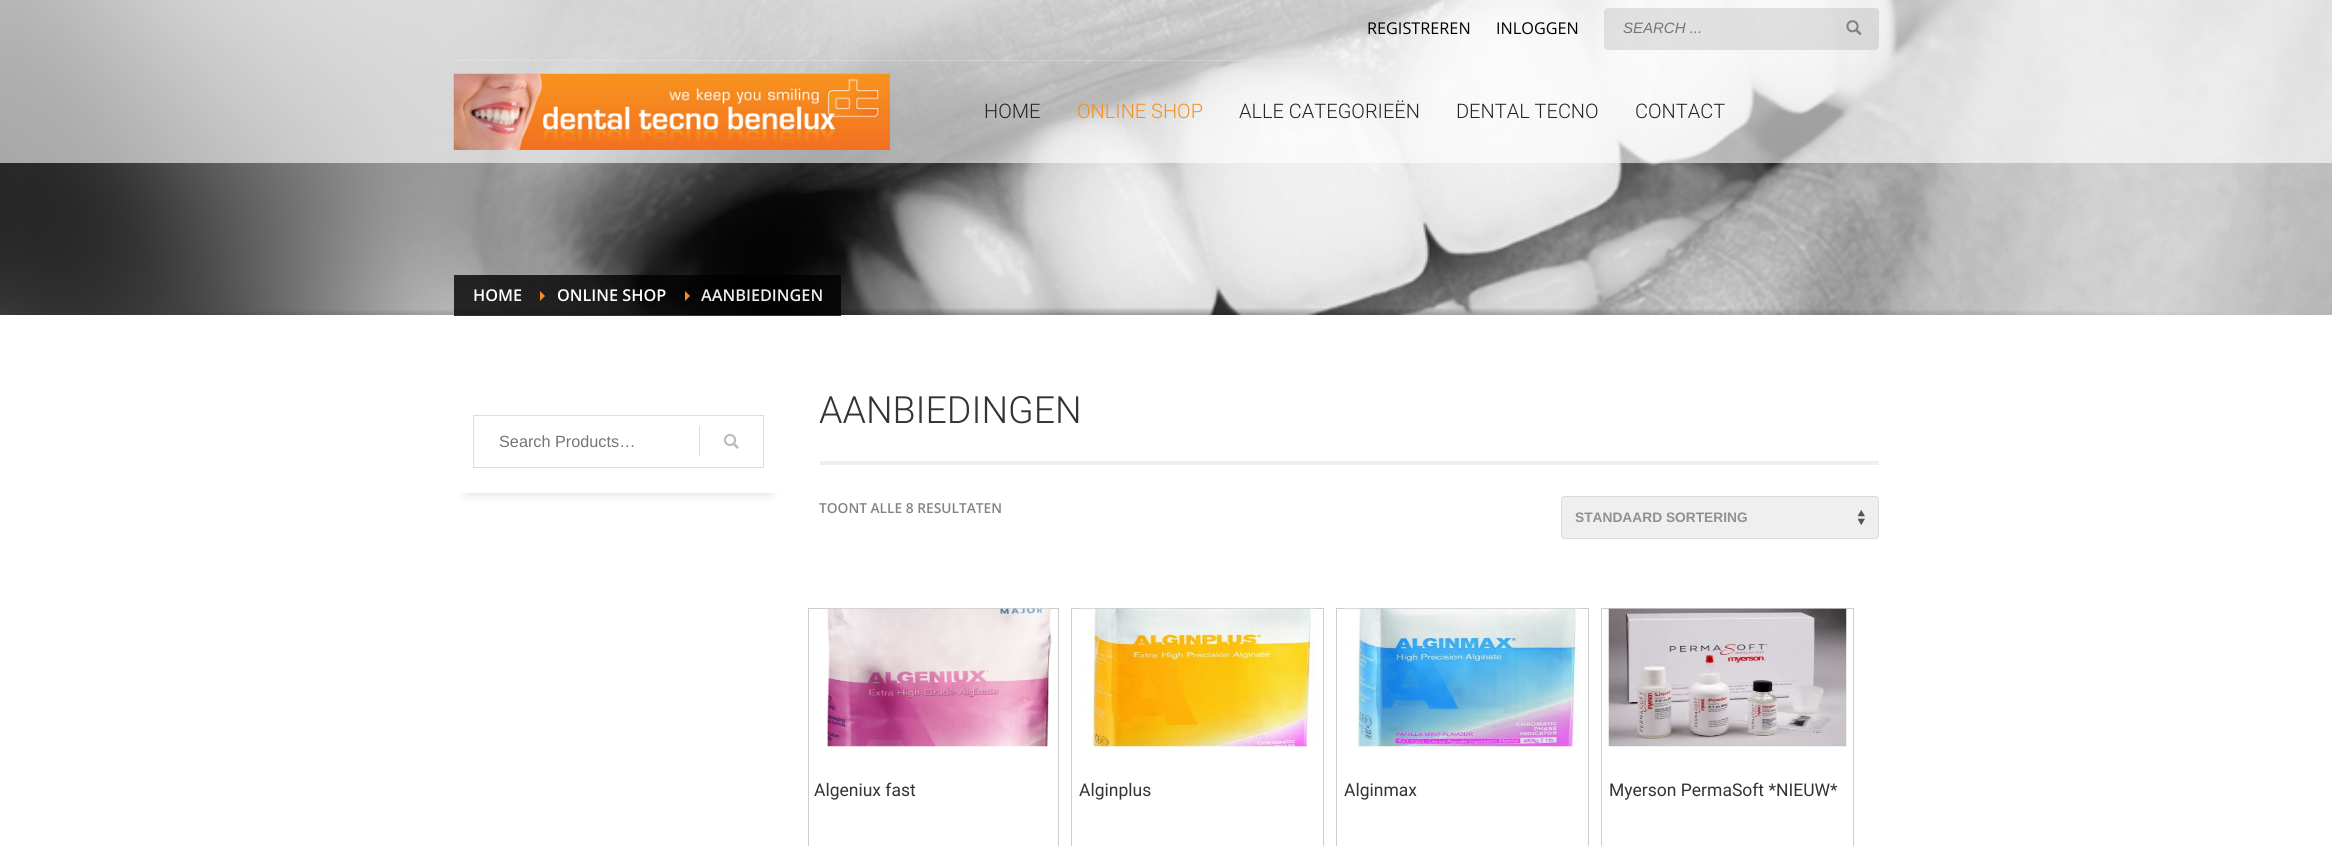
import math
import cairo

surface = cairo.ImageSurface(cairo.FORMAT_RGB24, 2332, 846)
cr = cairo.Context(surface)
options = cairo.FontOptions()
options.set_hint_metrics(cairo.HINT_METRICS_OFF)
options.set_hint_style(cairo.HINT_STYLE_NONE)
cr.set_font_options(options)
cr.set_miter_limit(4)


def rgb(code):
    cr.set_source_rgb(*(v / 255 for v in bytes.fromhex(code[-6:])))


def rrect(x, y, w, h, r):
    cr.new_sub_path()
    for i, (u, v) in enumerate([(x + w - r, y + h - r), (x + r, y + h - r), (x + r, y + r), (x + w - r, y + r)]):
        cr.arc(u, v, r, i * math.pi / 2, (i + 1) * math.pi / 2)
    cr.close_path()


def soft_shadow(x, y, w, h, r, blur, alpha):
    cr.push_group_with_content(cairo.CONTENT_ALPHA)
    cr.set_operator(cairo.OPERATOR_SOURCE)
    for i in range(15, -16, -2):
        e = blur * i / 6
        if min(w, h) + 2 * e > 0:
            cr.set_source_rgba(0, 0, 0, alpha * math.erfc((i - 1) / 8.5) / 2)
            rrect(x - e, y - e, w + 2 * e, h + 2 * e, max(0, min(r + e + blur * .6, min(w, h) / 2 + e)))
            cr.fill()
    cr.mask(cr.pop_group())


def image(path, x, y, w, h):
    cr.save()
    cr.set_source_surface(cairo.ImageSurface.create_from_png(path), x, y)
    cr.rectangle(x, y, w, h)
    cr.fill()
    cr.restore()


rgb("#ffffff")
cr.paint()
image("img/3.png", 0, 0, 2332, 315)
cr.set_source_rgba(1, 1, 1, 0.6)
cr.rectangle(0, 0, 2332, 163)
cr.fill()
cr.set_source_rgba(0, 0, 0, 0.1)
rrect(1604, 8, 275, 42, 4)
cr.fill()
image("img/1.png", 1846, 20, 16, 15)
cr.set_source_rgba(1, 1, 1, 0.2)
cr.rectangle(454, 60, 1425, 1)
cr.fill()
image("img/2.png", 453, 73, 437, 77)
rgb("#ececec")
cr.rectangle(1084, 126, 9, 1)
cr.fill()
rgb("#fafafa")
cr.rectangle(1245, 126, 9, 1)
cr.fill()
rgb("#fcfcfc")
cr.rectangle(1463, 126, 8, 1)
cr.fill()
cr.set_source_rgba(0, 0, 0, 0.8)
cr.rectangle(454, 275, 74, 41)
cr.fill()
cr.rectangle(528, 275, 145, 41)
cr.fill()
rgb("#f68e1f")
cr.new_path()
cr.move_to(540, 301)
cr.line_to(540, 291)
cr.line_to(545, 296)
cr.close_path()
cr.fill()
cr.set_source_rgba(0, 0, 0, 0.8)
cr.rectangle(673, 275, 168, 41)
cr.fill()
rgb("#f68e1f")
cr.new_path()
cr.move_to(685, 301)
cr.line_to(685, 291)
cr.line_to(690, 296)
cr.close_path()
cr.fill()
gradient = cairo.RadialGradient(0, 0, 0, 0, 0, 1)
gradient.set_matrix(cairo.Matrix(1 / 1649, 0, 0, 1 / 11, -1 * 1166 / 1649, -1 * 315 / 11))
gradient.add_color_stop_rgba(0, 0, 0, 0, 0.3)
gradient.add_color_stop_rgba(0.7, 0, 0, 0, 0)
cr.set_source(gradient)
cr.rectangle(179, 308, 2049, 7)
cr.fill()
rgb("#000000")
soft_shadow(466, 415, 304, 78, 0, 6, 0.15)
rgb("#ffffff")
rrect(454, 390, 329, 103, 4)
cr.fill()
cr.rectangle(473.5, 415.5, 290, 52)
rgb("#dddddd")
cr.set_line_width(1)
cr.stroke()
cr.rectangle(699, 426, 1, 30)
cr.fill()
image("img/4.png", 723, 433, 16, 16)
rgb("#efefef")
cr.rectangle(820, 461, 1059, 4)
cr.fill()
rrect(1561, 496, 318, 43, 4)
cr.fill()
image("img/5.png", 1858, 510, 7, 15)
rrect(1561.5, 496.5, 317, 42, 3.5)
rgb("#d9d9d9")
cr.stroke()
cr.rectangle(808.5, 608.5, 250, 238)
rgb("#cccccc")
cr.stroke()
image("img/6.png", 827, 608, 225, 139)
cr.rectangle(1071.5, 608.5, 252, 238)
cr.stroke()
image("img/7.png", 1079, 608, 237, 139)
cr.rectangle(1336.5, 608.5, 252, 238)
cr.stroke()
image("img/8.png", 1344, 608, 237, 139)
cr.rectangle(1601.5, 608.5, 252, 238)
cr.stroke()
image("img/9.png", 1608, 608, 239, 139)
cr.select_font_face("Open Sans")
cr.set_font_size(16.25)
rgb("#000000")
cr.move_to(1367, 34)
cr.show_text("REGISTREREN")
cr.move_to(1496, 34)
cr.show_text("INLOGGEN")
cr.select_font_face("Liberation Sans", cairo.FONT_SLANT_ITALIC)
cr.set_font_size(15)
rgb("#757575")
cr.move_to(1623, 33)
cr.show_text("SEARCH ...")
cr.select_font_face("Roboto Light")
cr.set_font_size(20)
rgb("#252525")
cr.move_to(984, 118)
cr.show_text("HOME")
rgb("#f68e1f")
cr.move_to(1077, 118)
cr.show_text("ONLINE SHOP")
rgb("#252525")
for x, y, s in [
    (1239, 118, "ALLE CATEGORIEËN"),
    (1456, 118, "DENTAL TECNO"),
    (1635, 118, "CONTACT"),
]:
    cr.move_to(x, y)
    cr.show_text(s)
cr.select_font_face("Open Sans SemiBold")
cr.set_font_size(16.25)
rgb("#ffffff")
cr.move_to(473, 301)
cr.show_text("HOME")
cr.move_to(557, 301)
cr.show_text("ONLINE SHOP")
rgb("#eeeeee")
cr.move_to(701, 301)
cr.show_text("AANBIEDINGEN")
cr.select_font_face("Liberation Sans")
rgb("#757575")
cr.move_to(499, 447)
cr.show_text("Search Products…")
cr.select_font_face("Roboto Light")
cr.set_font_size(37.5)
rgb("#343434")
cr.move_to(819, 423)
cr.show_text("AANBIEDINGEN")
cr.select_font_face("Open Sans SemiBold")
cr.set_font_size(13.75)
rgb("#838383")
cr.move_to(819, 513)
cr.show_text("TOONT ALLE 8 RESULTATEN")
cr.select_font_face("Liberation Sans", cairo.FONT_SLANT_NORMAL, cairo.FONT_WEIGHT_BOLD)
rgb("#909090")
cr.move_to(1575, 522)
cr.show_text("STANDAARD SORTERING")
cr.select_font_face("Roboto")
cr.set_font_size(17.5)
rgb("#343434")
for x, y, s in [
    (814, 796, "Algeniux fast"),
    (1079, 796, "Alginplus"),
    (1344, 796, "Alginmax"),
    (1609, 796, "Myerson PermaSoft *NIEUW*"),
]:
    cr.move_to(x, y)
    cr.show_text(s)
surface.write_to_png("page.png")
